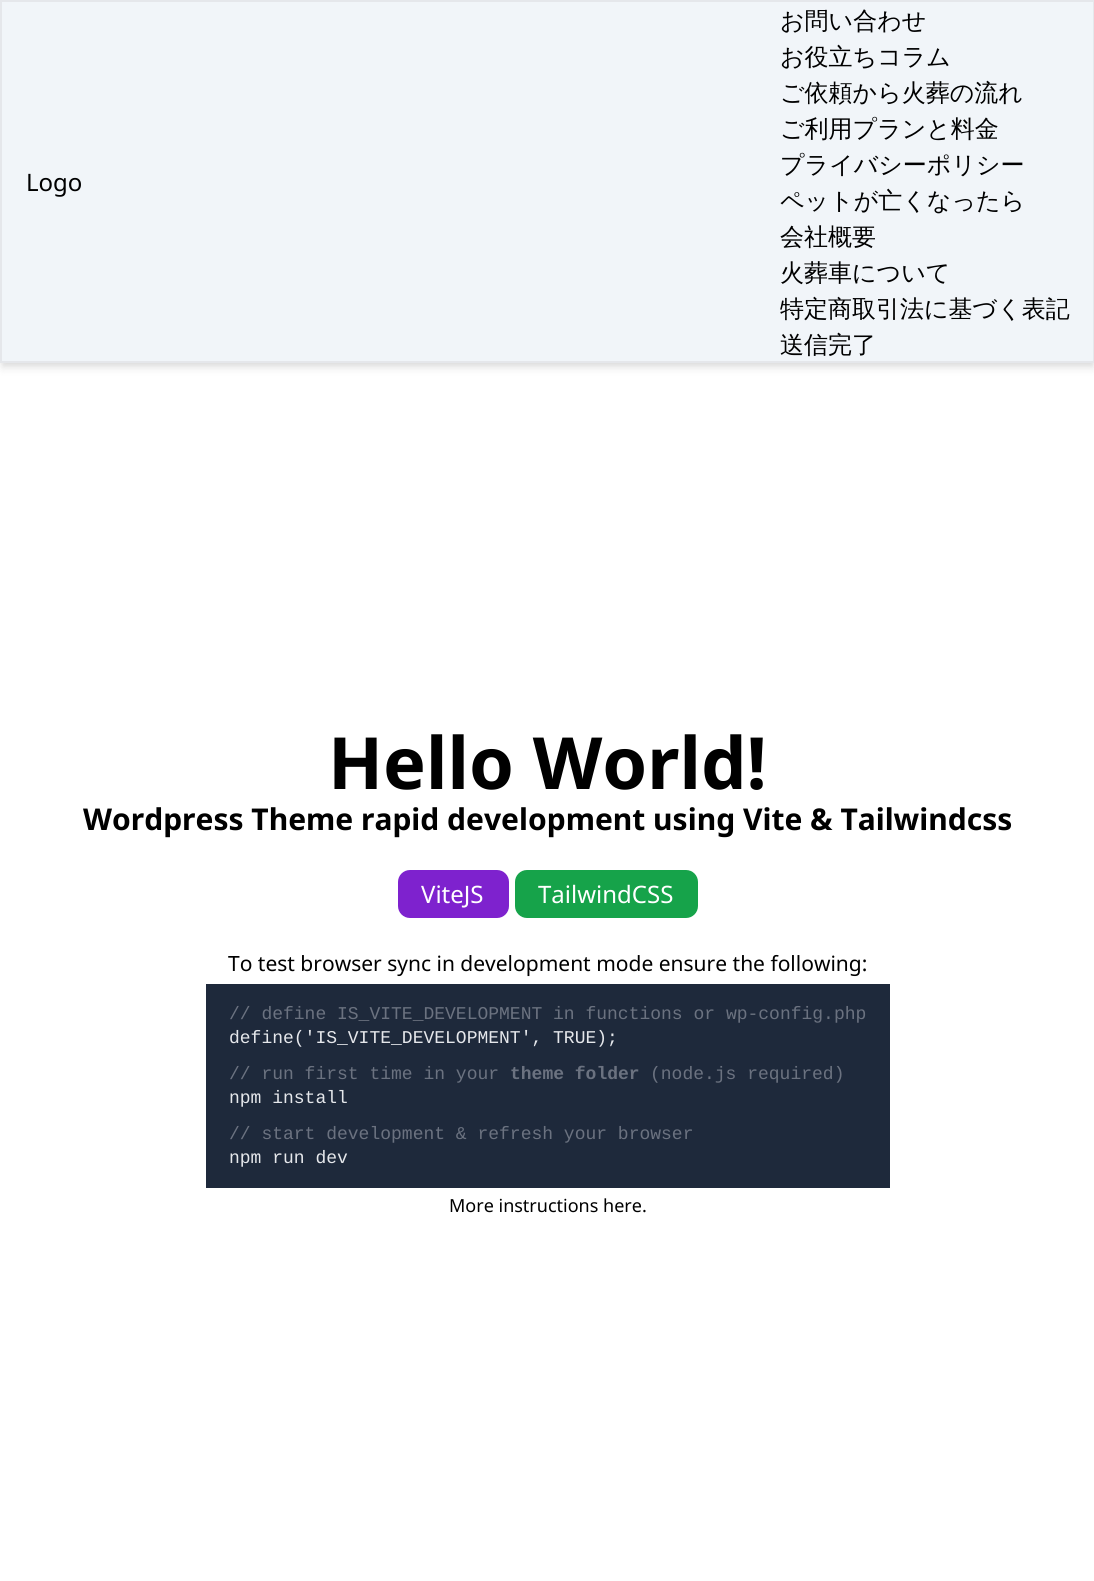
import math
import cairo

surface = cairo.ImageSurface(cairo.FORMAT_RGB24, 1094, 1581)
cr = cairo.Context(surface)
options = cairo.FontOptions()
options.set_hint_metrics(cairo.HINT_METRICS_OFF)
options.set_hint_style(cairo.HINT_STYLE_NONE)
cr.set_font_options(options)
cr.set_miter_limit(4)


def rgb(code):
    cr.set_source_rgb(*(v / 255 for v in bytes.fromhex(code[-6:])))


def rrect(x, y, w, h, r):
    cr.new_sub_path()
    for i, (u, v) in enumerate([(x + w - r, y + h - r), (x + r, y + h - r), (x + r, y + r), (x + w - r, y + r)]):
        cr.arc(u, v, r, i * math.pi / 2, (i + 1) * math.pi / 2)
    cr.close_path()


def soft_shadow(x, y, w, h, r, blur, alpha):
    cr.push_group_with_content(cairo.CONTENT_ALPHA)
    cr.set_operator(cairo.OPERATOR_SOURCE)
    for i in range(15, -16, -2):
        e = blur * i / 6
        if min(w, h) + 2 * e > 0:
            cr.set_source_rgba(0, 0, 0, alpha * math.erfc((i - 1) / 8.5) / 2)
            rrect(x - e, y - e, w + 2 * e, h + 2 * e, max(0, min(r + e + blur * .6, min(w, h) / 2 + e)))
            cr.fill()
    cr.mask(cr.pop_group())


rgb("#ffffff")
cr.paint()
rgb("#000000")
soft_shadow(3, 6, 1089, 357, 0, 3, 0.1)
soft_shadow(2, 8, 1092, 360, 0, 4.5, 0.1)
rgb("#f1f5f9")
cr.rectangle(1, 1, 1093, 361)
cr.fill_preserve()
rgb("#e5e7eb")
cr.stroke()
rgb("#7e22ce")
rrect(398, 870, 111, 48, 12)
cr.fill()
rgb("#16a34a")
rrect(515, 870, 183, 48, 12)
cr.fill()
rgb("#1e293b")
cr.rectangle(206, 984, 684, 204)
cr.fill()
cr.select_font_face("Noto Sans")
cr.set_font_size(24)
rgb("#000000")
cr.move_to(26, 191)
cr.show_text("Logo")
cr.select_font_face("WenQuanYi Zen Hei Medium")
for x, y, s in [
    (780, 29, "お問い合わせ"),
    (780, 65, "お役立ちコラム"),
    (780, 101, "ご依頼から火葬の流れ"),
    (780, 137, "ご利用プランと料金"),
    (780, 173, "プライバシーポリシー"),
    (780, 209, "ペットが亡くなったら"),
    (780, 245, "会社概要"),
    (780, 281, "火葬車について"),
    (780, 317, "特定商取引法に基づく表記"),
    (780, 353, "送信完了"),
]:
    cr.move_to(x, y)
    cr.show_text(s)
cr.select_font_face("Noto Sans", cairo.FONT_SLANT_NORMAL, cairo.FONT_WEIGHT_BOLD)
cr.set_font_size(72)
cr.move_to(328, 789)
cr.show_text("Hello World!")
cr.set_font_size(30)
cr.move_to(83, 830)
cr.show_text("Wordpress Theme rapid development using Vite & Tailwindcss")
cr.select_font_face("Noto Sans")
cr.set_font_size(24)
rgb("#ffffff")
cr.move_to(421, 903)
cr.show_text("ViteJS")
cr.move_to(538, 903)
cr.show_text("TailwindCSS")
cr.set_font_size(21)
rgb("#000000")
cr.move_to(228, 971)
cr.show_text("To test browser sync in development mode ensure the following:")
cr.select_font_face("Liberation Mono")
cr.set_font_size(18)
rgb("#6b7280")
cr.move_to(229, 1019)
cr.show_text("// define IS_VITE_DEVELOPMENT in functions or wp-config.php")
rgb("#e5e7eb")
cr.move_to(229, 1043)
cr.show_text("define('IS_VITE_DEVELOPMENT', TRUE);")
rgb("#6b7280")
cr.move_to(229, 1079)
cr.show_text("// run first time in your")
cr.select_font_face("Liberation Mono", cairo.FONT_SLANT_NORMAL, cairo.FONT_WEIGHT_BOLD)
cr.move_to(510, 1079)
cr.show_text("theme folder")
cr.select_font_face("Liberation Mono")
cr.move_to(650, 1079)
cr.show_text("(node.js required)")
rgb("#e5e7eb")
cr.move_to(229, 1103)
cr.show_text("npm install")
rgb("#6b7280")
cr.move_to(229, 1139)
cr.show_text("// start development & refresh your browser")
rgb("#e5e7eb")
cr.move_to(229, 1163)
cr.show_text("npm run dev")
cr.select_font_face("Noto Sans")
rgb("#000000")
cr.move_to(449, 1212)
cr.show_text("More instructions here.")
surface.write_to_png("page.png")
